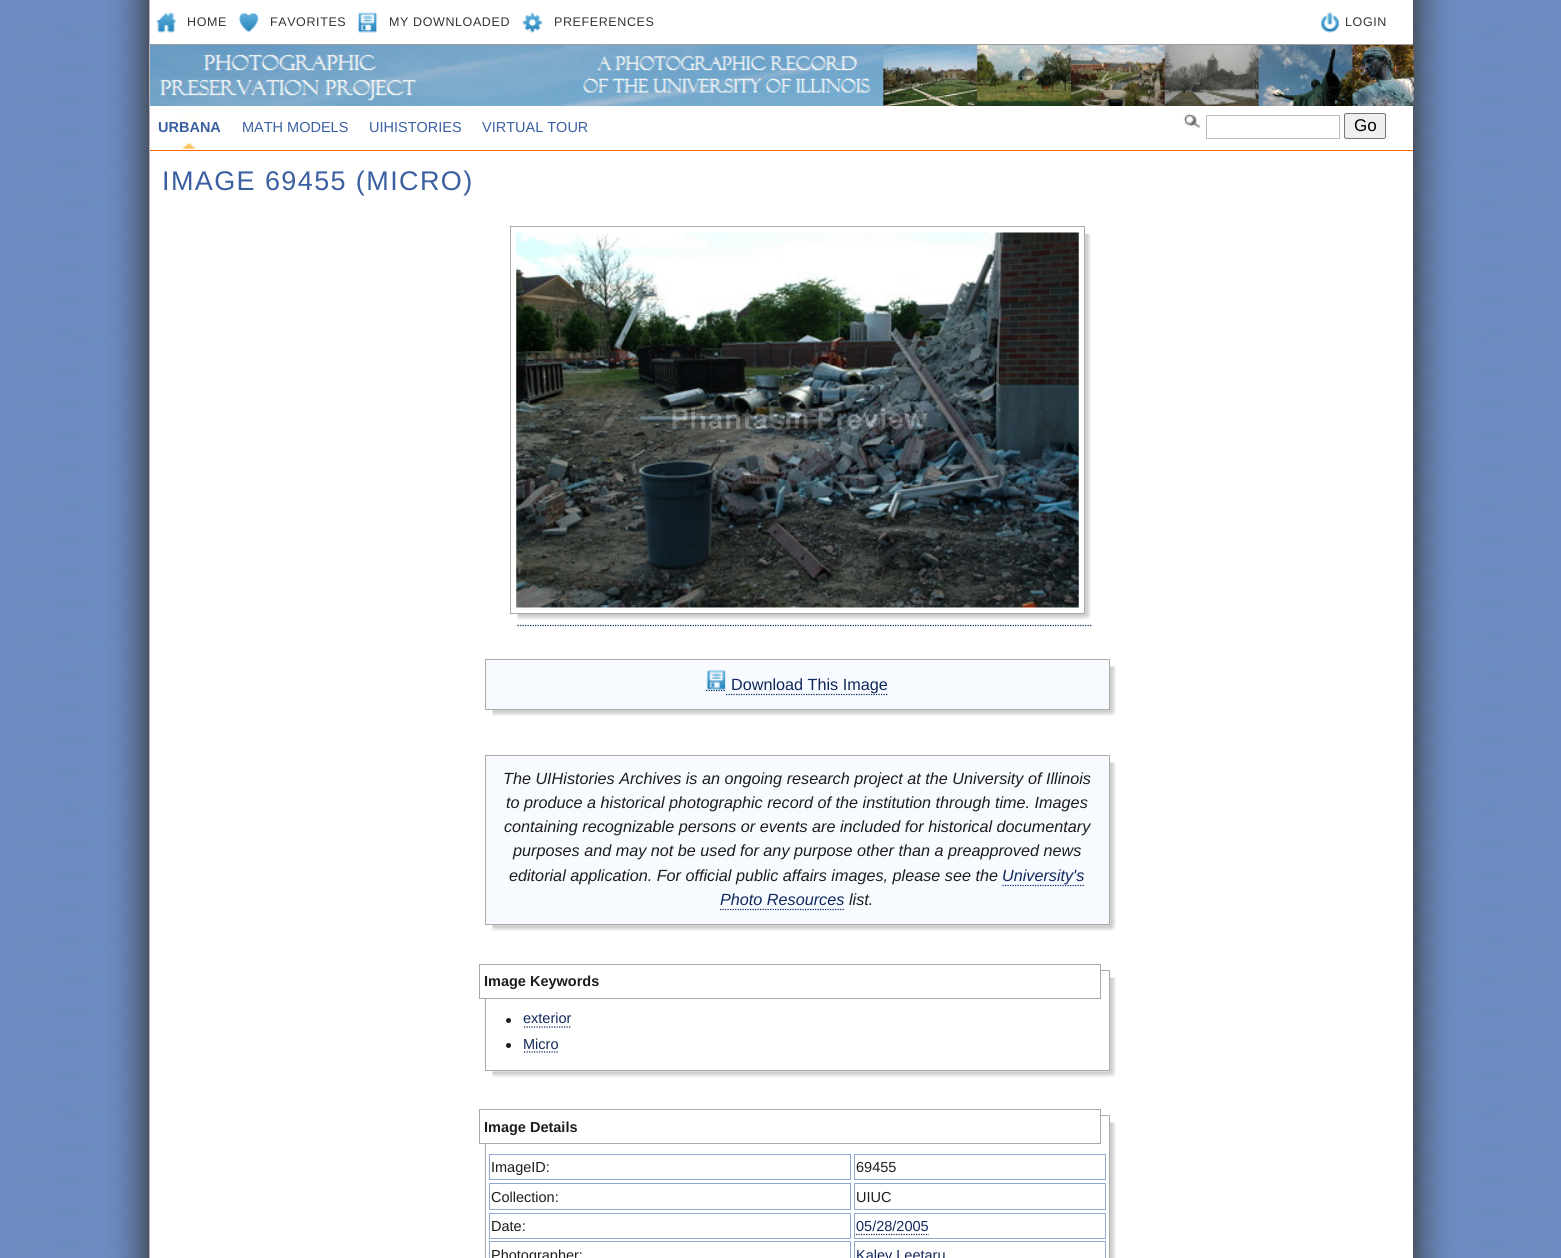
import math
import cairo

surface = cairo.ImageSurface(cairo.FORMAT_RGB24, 1561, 1258)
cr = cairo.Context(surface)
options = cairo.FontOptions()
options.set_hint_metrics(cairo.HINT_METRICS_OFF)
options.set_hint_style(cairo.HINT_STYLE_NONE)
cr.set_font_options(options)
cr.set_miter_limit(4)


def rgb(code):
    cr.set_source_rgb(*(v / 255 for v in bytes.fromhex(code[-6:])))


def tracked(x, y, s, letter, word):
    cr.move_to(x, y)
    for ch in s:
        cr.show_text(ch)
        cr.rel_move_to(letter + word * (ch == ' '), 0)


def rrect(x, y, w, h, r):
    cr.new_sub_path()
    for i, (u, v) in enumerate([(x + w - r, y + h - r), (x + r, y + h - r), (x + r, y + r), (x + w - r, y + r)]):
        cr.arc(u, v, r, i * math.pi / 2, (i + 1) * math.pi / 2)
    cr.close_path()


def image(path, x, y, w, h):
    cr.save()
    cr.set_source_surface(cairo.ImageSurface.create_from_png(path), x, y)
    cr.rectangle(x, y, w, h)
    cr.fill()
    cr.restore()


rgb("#ffffff")
cr.paint()
image("img/1.png", 0, 0, 1561, 1258)
rgb("#ffffff")
cr.rectangle(150, 0, 1263, 1258)
cr.fill()
rgb("#9d9d9d")
cr.rectangle(150, 44, 1263, 1)
cr.fill()
image("img/2.png", 156, 12, 21, 21)
image("img/3.png", 238, 12, 21, 21)
image("img/4.png", 357, 12, 21, 21)
image("img/5.png", 522, 12, 21, 21)
image("img/6.png", 1321, 12, 18, 21)
image("img/7.png", 150, 45, 1264, 62)
rgb("#ffffff")
cr.rectangle(150, 106, 1263, 1)
cr.fill()
rgb("#ff6600")
cr.rectangle(150, 150, 1263, 1)
cr.fill()
image("img/8.png", 178, 112, 22, 37)
image("img/9.png", 517, 233, 574, 387)
cr.rectangle(510.5, 226.5, 574, 387)
rgb("#a9a9a9")
cr.set_line_width(1)
cr.stroke()
image("img/10.png", 516, 232, 563, 376)
cr.new_path()
cr.move_to(517.5, 625.5)
cr.line_to(1092.5, 625.5)
rgb("#0f285c")
cr.set_line_width(1.2)
cr.set_dash([1.25, 1.25])
cr.stroke()
image("img/11.png", 492, 666, 624, 50)
rgb("#f7faff")
cr.rectangle(485.5, 659.5, 624, 50)
cr.fill_preserve()
rgb("#a9a9a9")
cr.set_line_width(1)
cr.set_dash([])
cr.stroke()
cr.new_path()
cr.move_to(706, 690.5)
cr.line_to(726, 690.5)
rgb("#0f285c")
cr.set_line_width(1.2)
cr.set_dash([1.25, 1.25])
cr.stroke()
image("img/12.png", 706, 670, 20, 20)
cr.new_path()
cr.move_to(726, 694.5)
cr.line_to(887.5, 694.5)
cr.stroke()
image("img/13.png", 492, 762, 624, 169)
rgb("#f7faff")
cr.rectangle(485.5, 755.5, 624, 169)
cr.fill_preserve()
rgb("#a9a9a9")
cr.set_line_width(1)
cr.set_dash([])
cr.stroke()
cr.new_path()
cr.move_to(1002.5, 885.5)
cr.line_to(1085, 885.5)
rgb("#0f285c")
cr.set_line_width(1.2)
cr.set_dash([1.25, 1.25])
cr.stroke()
cr.new_path()
cr.move_to(720, 909.5)
cr.line_to(845, 909.5)
cr.stroke()
image("img/14.png", 492, 977, 624, 101)
cr.rectangle(485.5, 970.5, 624, 100)
rgb("#a9a9a9")
cr.set_line_width(1)
cr.set_dash([])
cr.stroke()
rgb("#ffffff")
cr.rectangle(485, 970, 615, 28)
cr.fill()
cr.rectangle(479.5, 964.5, 621, 34)
rgb("#a9a9a9")
cr.stroke()
rgb("#1d1d1d")
cr.arc(508.5, 1020.5, 2.5, 0, 2 * math.pi)
cr.fill()
cr.new_path()
cr.move_to(524, 1027)
cr.line_to(571, 1027)
rgb("#0f285c")
cr.set_line_width(1.2)
cr.set_dash([1.25, 1.25])
cr.stroke()
rgb("#1d1d1d")
cr.arc(508.5, 1045.5, 2.5, 0, 2 * math.pi)
cr.fill()
cr.new_path()
cr.move_to(524, 1052)
cr.line_to(559, 1052)
rgb("#0f285c")
cr.stroke()
image("img/15.png", 1110, 1122, 6, 136)
cr.rectangle(485.5, 1115.5, 624, 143)
rgb("#a9a9a9")
cr.set_line_width(1)
cr.set_dash([])
cr.stroke()
rgb("#ffffff")
cr.rectangle(485, 1115, 615, 28)
cr.fill()
cr.rectangle(479.5, 1109.5, 621, 34)
rgb("#a9a9a9")
cr.stroke()
cr.rectangle(489.5, 1154.5, 361, 25)
rgb("#8fa8d4")
cr.stroke()
cr.rectangle(854.5, 1154.5, 251, 25)
cr.stroke()
cr.rectangle(489.5, 1183.5, 361, 26)
cr.stroke()
cr.rectangle(854.5, 1183.5, 251, 26)
cr.stroke()
cr.rectangle(489.5, 1213.5, 361, 25)
cr.stroke()
cr.rectangle(854.5, 1213.5, 251, 25)
cr.stroke()
cr.new_path()
cr.move_to(856, 1234.5)
cr.line_to(929, 1234.5)
rgb("#0f285c")
cr.set_line_width(1.2)
cr.set_dash([1.25, 1.25])
cr.stroke()
cr.rectangle(489.5, 1241.5, 361, 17)
rgb("#8fa8d4")
cr.set_line_width(1)
cr.set_dash([])
cr.stroke()
cr.rectangle(854.5, 1241.5, 251, 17)
cr.stroke()
image("img/16.png", 1183, 113, 18, 15)
cr.rectangle(1206.5, 115.5, 133, 23)
rgb("#bbbbbb")
cr.stroke()
rgb("#efefef")
rrect(1344.5, 113.5, 41, 25, 2)
cr.fill_preserve()
rgb("#767676")
cr.stroke()
cr.select_font_face("Liberation Sans")
cr.set_font_size(12.5)
rgb("#333333")
for x, y, s in [
    (187, 26, "HOME"),
    (270, 26, "FAVORITES"),
    (389, 26, "MY DOWNLOADED"),
    (554, 26, "PREFERENCES"),
    (1345, 26, "LOGIN"),
]:
    tracked(x, y, s, 0.6, 0)
cr.select_font_face("Liberation Sans", cairo.FONT_SLANT_NORMAL, cairo.FONT_WEIGHT_BOLD)
cr.set_font_size(14.5)
rgb("#3b60a1")
cr.move_to(158, 132)
cr.show_text("URBANA")
cr.select_font_face("Liberation Sans")
for x, y, s in [
    (242, 132, "MATH MODELS"),
    (369, 132, "UIHISTORIES"),
    (482, 132, "VIRTUAL TOUR"),
]:
    cr.move_to(x, y)
    cr.show_text(s)
cr.set_font_size(27)
tracked(162, 190, "IMAGE 69455 (MICRO)", 1.4, 0)
cr.set_font_size(16.2)
rgb("#0f285c")
cr.move_to(731, 690)
cr.show_text("Download This Image")
cr.select_font_face("Liberation Sans", cairo.FONT_SLANT_ITALIC)
rgb("#1d1d1d")
for x, y, s in [
    (503, 784, "The UIHistories Archives is an ongoing research project at the University of Illinois"),
    (506, 808, "to produce a historical photographic record of the institution through time. Images"),
    (504, 832, "containing recognizable persons or events are included for historical documentary"),
    (513, 856, "purposes and may not be used for any purpose other than a preapproved news"),
    (509, 881, "editorial application. For official public affairs images, please see the"),
]:
    cr.move_to(x, y)
    cr.show_text(s)
rgb("#0f285c")
cr.move_to(1002, 881)
cr.show_text("University's")
cr.move_to(720, 905)
cr.show_text("Photo Resources")
rgb("#1d1d1d")
cr.move_to(849, 905)
cr.show_text("list.")
cr.select_font_face("Liberation Sans", cairo.FONT_SLANT_NORMAL, cairo.FONT_WEIGHT_BOLD)
cr.set_font_size(14.5)
cr.move_to(484, 986)
cr.show_text("Image Keywords")
cr.select_font_face("Liberation Sans")
rgb("#0f285c")
cr.move_to(523, 1023)
cr.show_text("exterior")
cr.move_to(523, 1049)
cr.show_text("Micro")
cr.select_font_face("Liberation Sans", cairo.FONT_SLANT_NORMAL, cairo.FONT_WEIGHT_BOLD)
rgb("#1d1d1d")
cr.move_to(484, 1132)
cr.show_text("Image Details")
cr.select_font_face("Liberation Sans")
for x, y, s in [
    (491, 1172, "ImageID:"),
    (856, 1172, "69455"),
    (491, 1202, "Collection:"),
    (856, 1202, "UIUC"),
    (491, 1231, "Date:"),
]:
    cr.move_to(x, y)
    cr.show_text(s)
rgb("#0f285c")
cr.move_to(856, 1231)
cr.show_text("05/28/2005")
rgb("#1d1d1d")
cr.move_to(491, 1260)
cr.show_text("Photographer:")
rgb("#0f285c")
cr.move_to(856, 1260)
cr.show_text("Kalev Leetaru")
cr.set_font_size(17)
rgb("#000000")
cr.move_to(1354, 131)
cr.show_text("Go")
surface.write_to_png("page.png")
